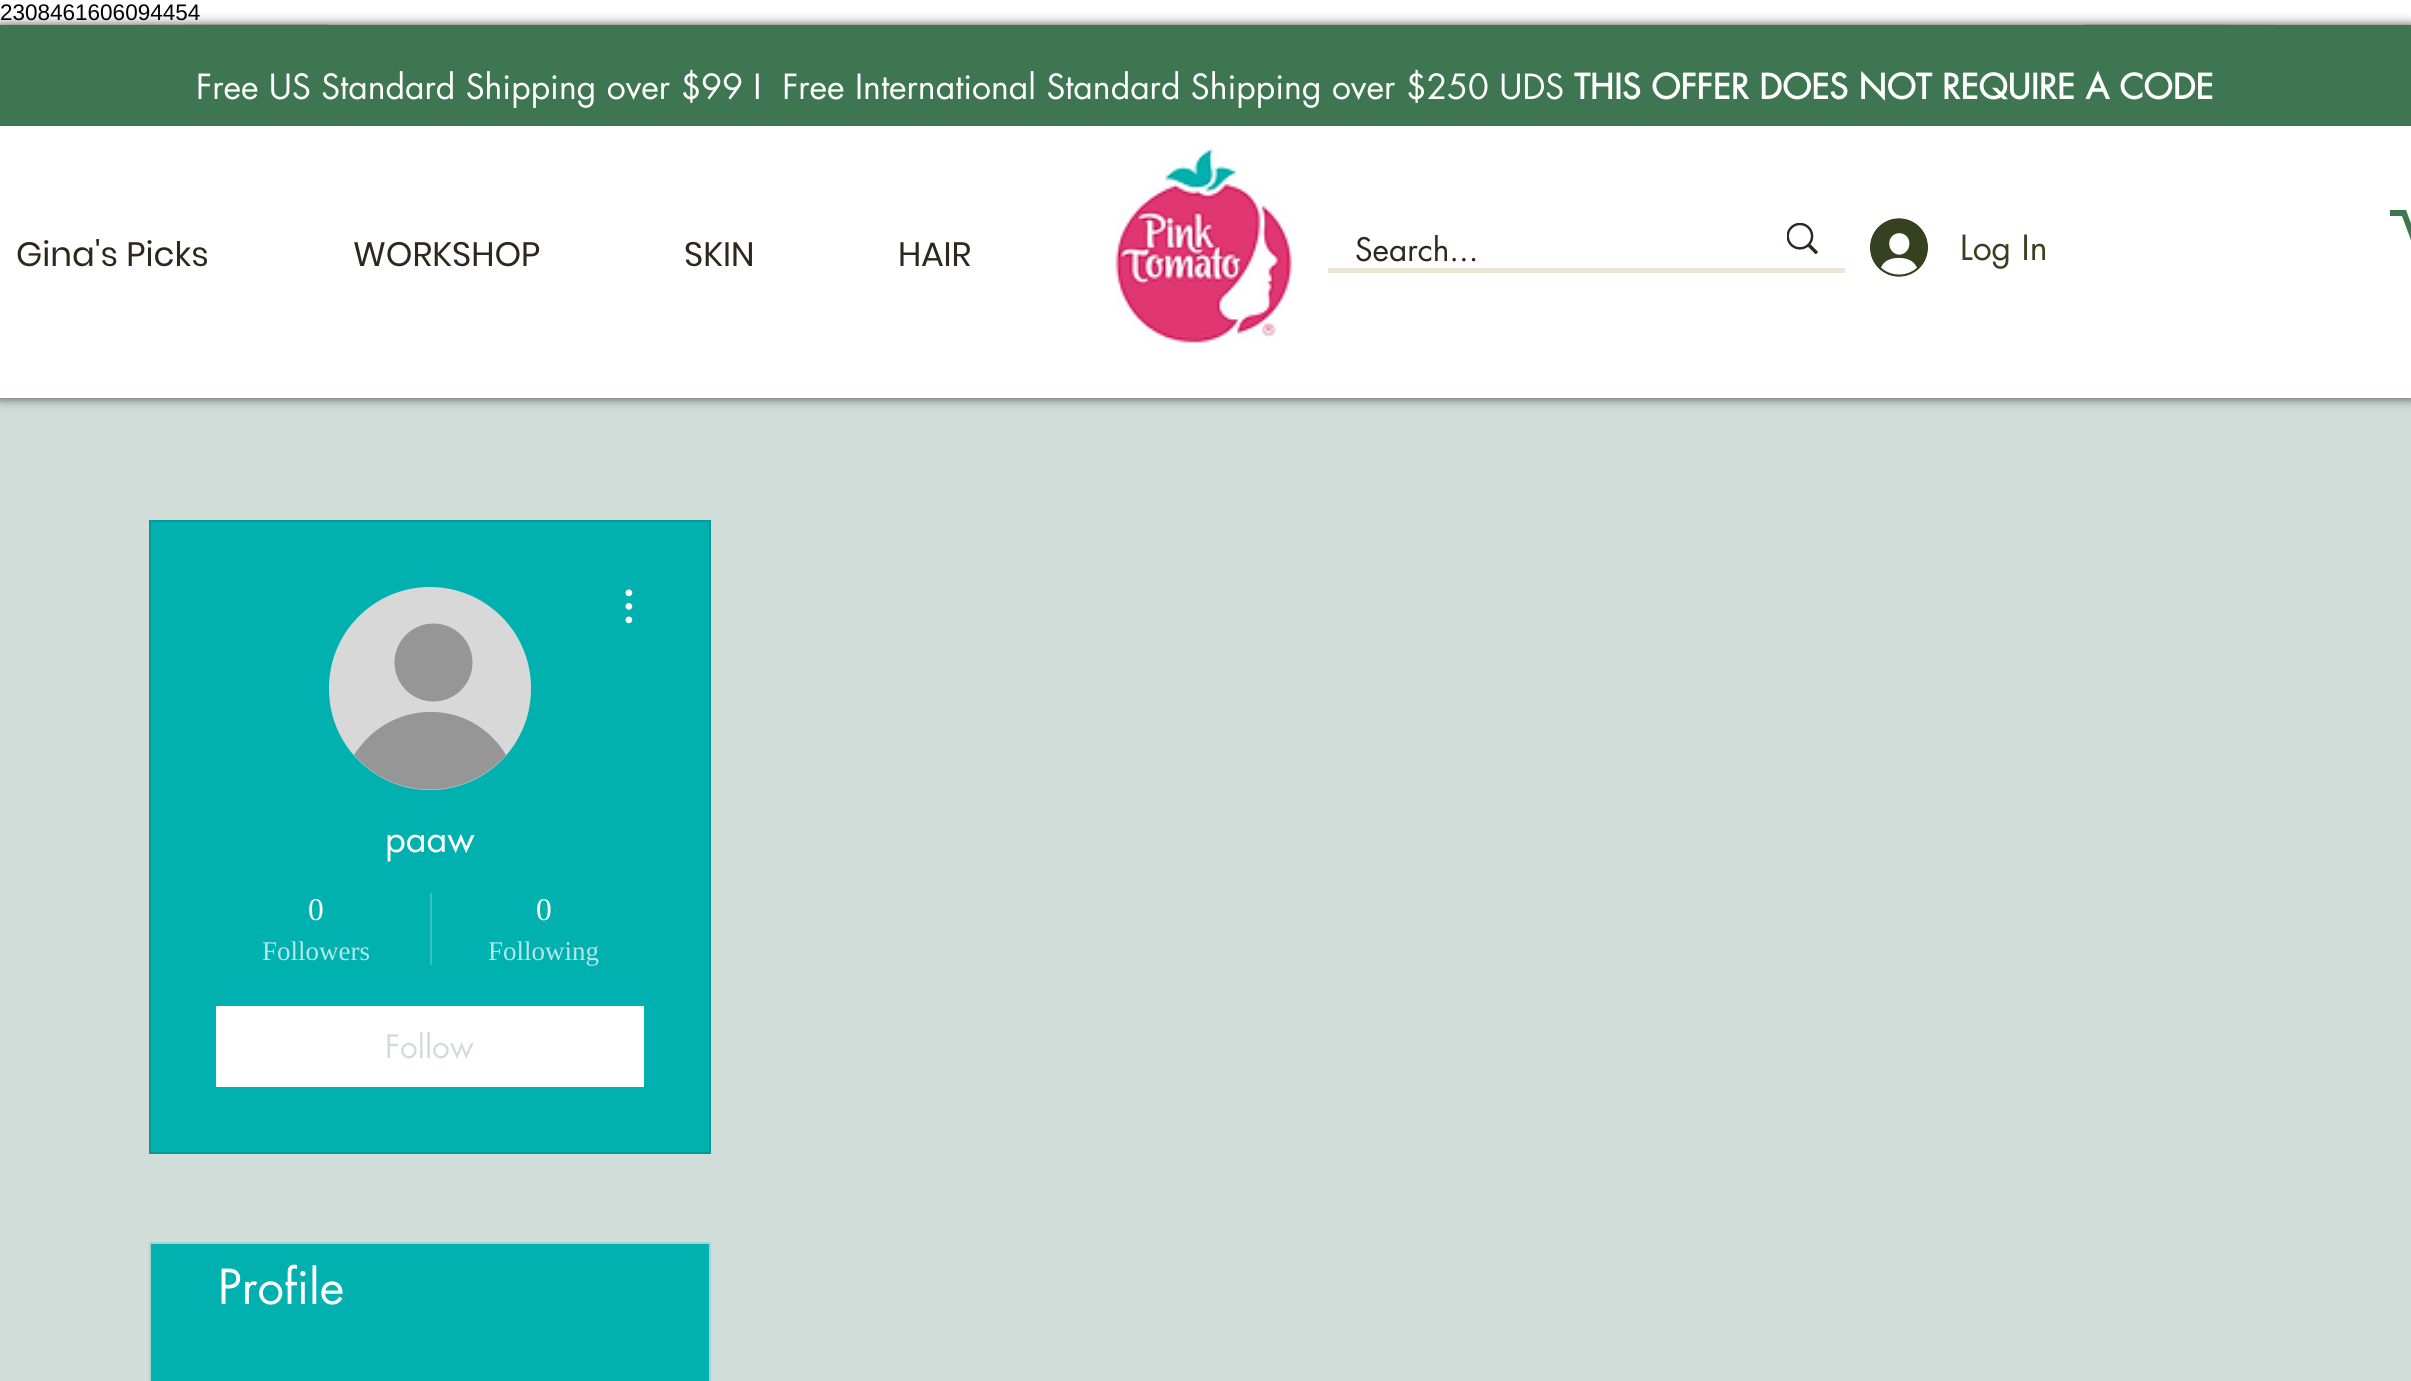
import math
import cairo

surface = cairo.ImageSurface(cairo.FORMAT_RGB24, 2411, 1381)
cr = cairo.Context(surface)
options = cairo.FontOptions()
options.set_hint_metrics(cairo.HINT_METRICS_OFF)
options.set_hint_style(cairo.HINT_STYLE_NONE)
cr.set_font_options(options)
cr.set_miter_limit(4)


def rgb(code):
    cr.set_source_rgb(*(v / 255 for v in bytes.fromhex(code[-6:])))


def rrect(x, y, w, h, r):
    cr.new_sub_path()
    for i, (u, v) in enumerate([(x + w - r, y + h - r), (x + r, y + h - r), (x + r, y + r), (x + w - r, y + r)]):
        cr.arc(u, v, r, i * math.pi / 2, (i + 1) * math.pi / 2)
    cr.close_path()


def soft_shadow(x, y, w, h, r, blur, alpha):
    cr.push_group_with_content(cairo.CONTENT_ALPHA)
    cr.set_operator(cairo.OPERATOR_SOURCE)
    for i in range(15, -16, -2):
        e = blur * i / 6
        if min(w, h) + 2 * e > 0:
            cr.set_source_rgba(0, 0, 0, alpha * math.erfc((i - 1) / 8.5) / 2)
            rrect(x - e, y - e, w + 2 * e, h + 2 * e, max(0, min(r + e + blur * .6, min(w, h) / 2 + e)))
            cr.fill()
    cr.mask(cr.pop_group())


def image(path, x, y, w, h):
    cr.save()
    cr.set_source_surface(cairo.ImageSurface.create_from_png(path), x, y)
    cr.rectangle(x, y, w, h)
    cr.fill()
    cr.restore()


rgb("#ffffff")
cr.paint()
image("img/1.png", 136, 24, 193, 1)
image("img/2.png", 2083, 24, 193, 1)
rgb("#d1ddd9")
cr.rectangle(0, 398, 2411, 983)
cr.fill()
rgb("#000000")
soft_shadow(0, 25, 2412, 373, 0, 5.5, 0.7)
rgb("#ffffff")
cr.rectangle(0, 126, 2411, 272)
cr.fill()
rgb("#3f7652")
cr.rectangle(0, 25, 2411, 101)
cr.fill()
image("img/3.png", 1115, 148, 178, 195)
cr.new_path()
cr.move_to(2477, 227)
cr.line_to(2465, 259)
cr.line_to(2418, 259)
cr.line_to(2402, 216)
cr.line_to(2390, 216)
cr.line_to(2390, 210)
cr.line_to(2406, 210)
cr.line_to(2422, 253)
cr.line_to(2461, 253)
cr.line_to(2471, 227)
cr.fill()
rgb("#ebe5d6")
cr.rectangle(1328, 268, 517, 5)
cr.fill()
image("img/4.png", 1787, 223, 31, 31)
image("img/5.png", 1870, 218, 58, 59)
rgb("#01b1af")
cr.rectangle(150, 521, 560, 632)
cr.fill_preserve()
rgb("#099896")
cr.stroke()
rgb("#d8d8d8")
rrect(329, 587, 202, 203, 101)
cr.fill()
rgb("#969696")
cr.arc(433.5, 662.5, 39, 0, 2 * math.pi)
cr.fill()
cr.new_path()
cr.move_to(506, 755)
cr.curve_to(466, 801, 394, 801, 354, 755)
cr.curve_to(390, 698, 471, 697, 506, 755)
cr.close_path()
cr.fill()
image("img/6.png", 625, 589, 8, 35)
rgb("#34c1bf")
cr.rectangle(430, 893, 2, 72)
cr.fill()
rgb("#ffffff")
cr.rectangle(216, 1006, 428, 81)
cr.fill()
cr.rectangle(150, 1243, 560, 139)
rgb("#a7d4d1")
cr.stroke()
rgb("#01b1af")
cr.rectangle(151, 1244, 558, 137)
cr.fill()
cr.select_font_face("Liberation Sans")
cr.set_font_size(22.5)
rgb("#000000")
cr.move_to(0, 20)
cr.show_text("2308461606094454")
cr.select_font_face("futura")
cr.set_font_size(33.75)
rgb("#ffffff")
cr.move_to(196, 99)
cr.show_text("Free US Standard Shipping over $99 I  Free International Standard Shipping over $250 UDS")
cr.select_font_face("futura", cairo.FONT_SLANT_NORMAL, cairo.FONT_WEIGHT_BOLD)
cr.move_to(1574, 99)
cr.show_text("THIS OFFER DOES NOT REQUIRE A CODE")
cr.select_font_face("Poppins")
rgb("#2d271d")
for x, y, s in [
    (16, 266, "Gina's Picks"),
    (353, 266, "WORKSHOP"),
    (684, 266, "SKIN"),
    (898, 266, "HAIR"),
]:
    cr.move_to(x, y)
    cr.show_text(s)
cr.select_font_face("futura")
cr.set_font_size(31.5)
cr.move_to(1355, 261)
cr.show_text("Search...")
cr.set_font_size(33.75)
rgb("#354120")
cr.move_to(1960, 260)
cr.show_text("Log In")
cr.set_font_size(36)
rgb("#ffffff")
cr.move_to(385, 852)
cr.show_text("paaw")
cr.select_font_face("Liberation Serif")
cr.set_font_size(31.5)
cr.move_to(308, 920)
cr.show_text("0")
cr.set_font_size(27)
rgb("#b3e8e7")
cr.move_to(262, 960)
cr.show_text("Followers")
cr.set_font_size(31.5)
rgb("#ffffff")
cr.move_to(536, 920)
cr.show_text("0")
cr.set_font_size(27)
rgb("#b3e8e7")
cr.move_to(488, 960)
cr.show_text("Following")
cr.select_font_face("futura")
cr.set_font_size(31.5)
rgb("#d1ddd9")
cr.move_to(385, 1058)
cr.show_text("Follow")
cr.set_font_size(47)
rgb("#ffffff")
cr.move_to(218, 1304)
cr.show_text("Profile")
surface.write_to_png("page.png")
